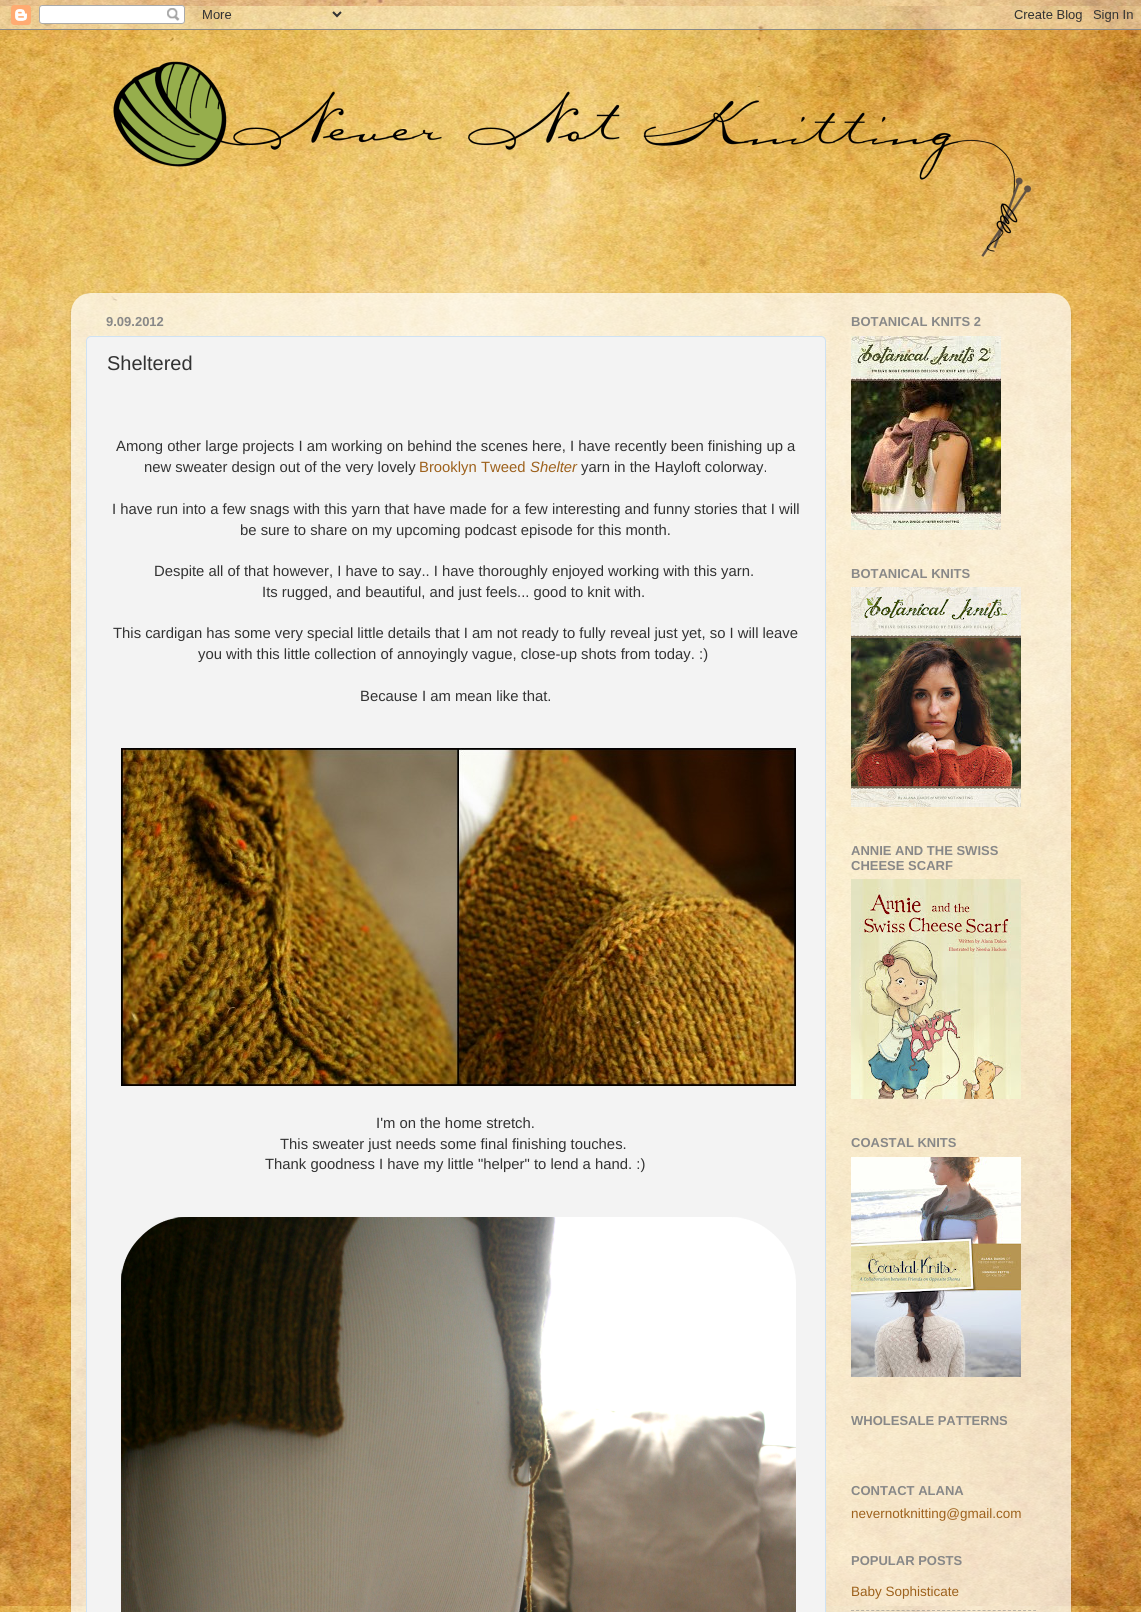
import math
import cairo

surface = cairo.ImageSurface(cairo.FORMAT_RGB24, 1141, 1612)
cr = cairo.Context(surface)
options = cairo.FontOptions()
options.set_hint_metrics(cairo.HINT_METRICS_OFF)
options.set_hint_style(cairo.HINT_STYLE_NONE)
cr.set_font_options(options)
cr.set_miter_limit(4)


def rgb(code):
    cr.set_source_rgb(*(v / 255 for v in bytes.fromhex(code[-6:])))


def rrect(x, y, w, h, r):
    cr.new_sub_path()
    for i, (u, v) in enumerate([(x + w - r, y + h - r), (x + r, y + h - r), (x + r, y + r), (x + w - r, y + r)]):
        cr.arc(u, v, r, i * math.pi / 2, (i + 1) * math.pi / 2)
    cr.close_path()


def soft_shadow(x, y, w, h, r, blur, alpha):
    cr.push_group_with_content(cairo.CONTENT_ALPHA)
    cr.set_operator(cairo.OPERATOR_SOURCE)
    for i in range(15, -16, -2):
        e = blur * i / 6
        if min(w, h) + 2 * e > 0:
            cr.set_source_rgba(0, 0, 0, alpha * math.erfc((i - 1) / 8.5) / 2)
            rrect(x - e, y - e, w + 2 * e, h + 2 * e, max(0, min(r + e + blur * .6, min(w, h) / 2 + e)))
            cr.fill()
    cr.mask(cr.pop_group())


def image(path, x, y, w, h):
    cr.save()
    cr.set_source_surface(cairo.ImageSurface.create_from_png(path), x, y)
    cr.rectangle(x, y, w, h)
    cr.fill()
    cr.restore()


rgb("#ffffff")
cr.paint()
image("img/1.png", 0, 0, 1141, 1612)
image("img/2.png", 0, 0, 1141, 30)
image("img/3.png", 113, 61, 919, 196)
cr.save()
cr.set_fill_rule(cairo.FILL_RULE_EVEN_ODD)
cr.new_path()
cr.move_to(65, 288)
cr.line_to(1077, 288)
cr.line_to(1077, 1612)
cr.line_to(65, 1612)
cr.close_path()
cr.move_to(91, 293)
cr.line_to(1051, 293)
cr.curve_to(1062, 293, 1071, 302, 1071, 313)
cr.line_to(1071, 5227)
cr.line_to(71, 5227)
cr.line_to(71, 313)
cr.curve_to(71, 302, 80, 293, 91, 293)
cr.close_path()
cr.clip()
rgb("#000000")
soft_shadow(71, 294, 1000, 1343, 20, 1.5, 0.15)
cr.restore()
image("img/4.png", 71, 293, 1000, 1319)
rgb("#f3f3f3")
rrect(86.5, 336.5, 739, 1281, 4.5)
cr.fill_preserve()
rgb("#cfe2f3")
cr.set_line_width(1)
cr.stroke()
image("img/5.png", 121, 748, 675, 338)
image("img/6.png", 121, 1217, 675, 395)
image("img/7.png", 851, 336, 150, 194)
image("img/8.png", 851, 587, 170, 220)
image("img/9.png", 851, 879, 170, 220)
image("img/10.png", 851, 1157, 170, 220)
cr.new_path()
cr.move_to(851, 1610.5)
cr.line_to(1036, 1610.5)
cr.set_source_rgba(0.502, 0.502, 0.502, 0.5)
cr.set_dash([3, 2.06])
cr.stroke()
cr.select_font_face("Liberation Sans", cairo.FONT_SLANT_NORMAL, cairo.FONT_WEIGHT_BOLD)
cr.set_font_size(13)
rgb("#888888")
cr.move_to(106, 326)
cr.show_text("9.09.2012")
cr.select_font_face("Liberation Sans")
cr.set_font_size(20)
rgb("#333333")
cr.move_to(107, 370)
cr.show_text("Sheltered")
cr.set_font_size(14.85)
cr.move_to(116, 451)
cr.show_text("Among other large projects I am working on behind the scenes here, I have recently been finishing up a")
cr.move_to(144, 472)
cr.show_text("new sweater design out of the very lovely")
rgb("#9d611c")
cr.move_to(419, 472)
cr.show_text("Brooklyn Tweed")
cr.select_font_face("Liberation Sans", cairo.FONT_SLANT_ITALIC)
cr.move_to(530, 472)
cr.show_text("Shelter")
cr.select_font_face("Liberation Sans")
rgb("#333333")
for x, y, s in [
    (581, 472, "yarn in the Hayloft colorway."),
    (112, 514, "I have run into a few snags with this yarn that have made for a few interesting and funny stories that I will"),
    (240, 535, "be sure to share on my upcoming podcast episode for this month."),
    (154, 576, "Despite all of that however, I have to say.. I have thoroughly enjoyed working with this yarn."),
    (262, 597, "Its rugged, and beautiful, and just feels... good to knit with."),
    (113, 638, "This cardigan has some very special little details that I am not ready to fully reveal just yet, so I will leave"),
    (198, 659, "you with this little collection of annoyingly vague, close-up shots from today. :)"),
    (360, 701, "Because I am mean like that."),
    (376, 1128, "I'm on the home stretch."),
    (280, 1149, "This sweater just needs some final finishing touches."),
    (265, 1169, "Thank goodness I have my little \"helper\" to lend a hand. :)"),
]:
    cr.move_to(x, y)
    cr.show_text(s)
cr.select_font_face("Liberation Sans", cairo.FONT_SLANT_NORMAL, cairo.FONT_WEIGHT_BOLD)
cr.set_font_size(13)
rgb("#888888")
for x, y, s in [
    (851, 326, "BOTANICAL KNITS 2"),
    (851, 578, "BOTANICAL KNITS"),
    (851, 855, "ANNIE AND THE SWISS"),
    (851, 870, "CHEESE SCARF"),
    (851, 1147, "COASTAL KNITS"),
    (851, 1425, "WHOLESALE PATTERNS"),
    (851, 1495, "CONTACT ALANA"),
]:
    cr.move_to(x, y)
    cr.show_text(s)
cr.select_font_face("Liberation Sans")
cr.set_font_size(13.5)
rgb("#9d611c")
cr.move_to(851, 1518)
cr.show_text("nevernotknitting@gmail.com")
cr.select_font_face("Liberation Sans", cairo.FONT_SLANT_NORMAL, cairo.FONT_WEIGHT_BOLD)
cr.set_font_size(13)
rgb("#888888")
cr.move_to(851, 1565)
cr.show_text("POPULAR POSTS")
cr.select_font_face("Liberation Sans")
cr.set_font_size(13.5)
rgb("#9d611c")
cr.move_to(851, 1596)
cr.show_text("Baby Sophisticate")
surface.write_to_png("page.png")
